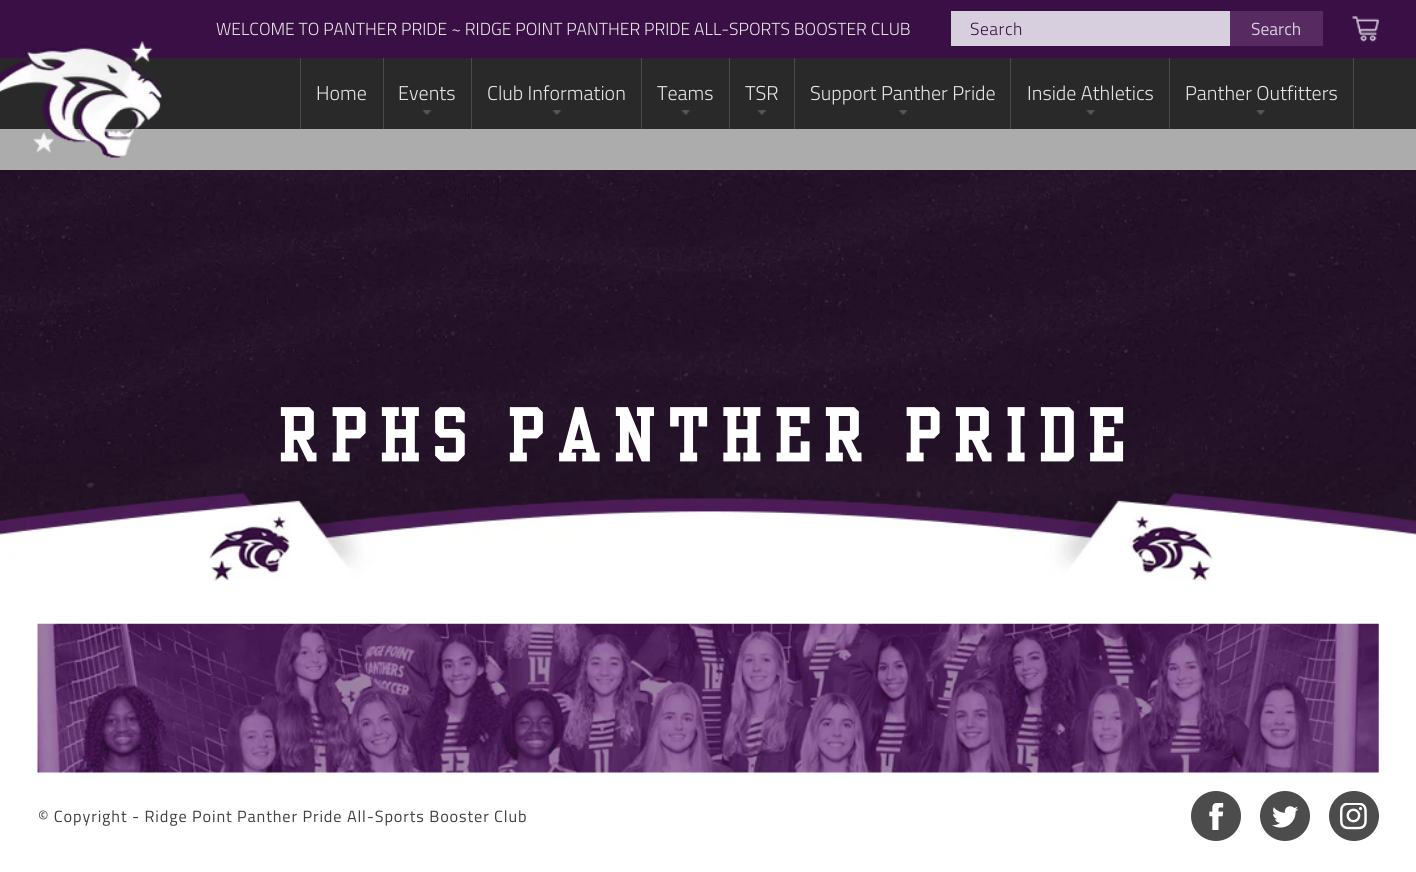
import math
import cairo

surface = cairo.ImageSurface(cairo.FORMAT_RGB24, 1416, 872)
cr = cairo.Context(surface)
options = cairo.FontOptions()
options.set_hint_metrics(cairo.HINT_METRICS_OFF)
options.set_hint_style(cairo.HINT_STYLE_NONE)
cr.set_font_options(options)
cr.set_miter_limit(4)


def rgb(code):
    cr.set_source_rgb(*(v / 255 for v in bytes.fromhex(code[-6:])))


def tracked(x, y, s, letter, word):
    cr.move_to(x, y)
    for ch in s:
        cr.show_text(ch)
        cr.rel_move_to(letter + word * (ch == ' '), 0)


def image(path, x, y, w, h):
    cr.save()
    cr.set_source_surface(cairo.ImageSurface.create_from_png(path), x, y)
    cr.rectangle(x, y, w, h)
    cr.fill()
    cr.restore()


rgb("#ffffff")
cr.paint()
image("img/1.png", 0, 170, 1416, 355)
for x, y, w, h, color in [
    (0, 0, 1416, 58, "#3a0f45"),
    (951, 11, 279, 35, "#d8cfde"),
    (1230, 11, 93, 35, "#572a62"),
]:
    rgb(color)
    cr.rectangle(x, y, w, h)
    cr.fill()
image("img/2.png", 1352, 16, 27, 26)
rgb("#29292a")
cr.rectangle(0, 58, 1416, 71)
cr.fill()
rgb("#adacad")
cr.rectangle(0, 129, 1416, 41)
cr.fill()
image("img/3.png", 0, 41, 163, 117)
for x, y, w, h, color in [
    (383, 58, 1, 71, "#4a4a4a"),
    (300, 58, 1, 71, "#4a4a4a"),
    (471, 58, 1, 71, "#4a4a4a"),
]:
    rgb(color)
    cr.rectangle(x, y, w, h)
    cr.fill()
image("img/4.png", 422, 110, 10, 5)
cr.rectangle(641, 58, 1, 71)
cr.fill()
image("img/4.png", 552, 110, 10, 5)
cr.rectangle(729, 58, 1, 71)
cr.fill()
image("img/5.png", 681, 110, 9, 5)
cr.rectangle(794, 58, 1, 71)
cr.fill()
image("img/4.png", 757, 110, 10, 5)
cr.rectangle(1010, 58, 1, 71)
cr.fill()
image("img/6.png", 898, 110, 10, 5)
cr.rectangle(1169, 58, 1, 71)
cr.fill()
image("img/5.png", 1086, 110, 9, 5)
cr.rectangle(1353, 58, 1, 71)
cr.fill()
image("img/7.png", 1256, 110, 9, 5)
image("img/8.png", 0, 493, 1416, 88)
image("img/9.png", 37, 623, 1342, 150)
rgb("#4c4c4c")
cr.arc(1216, 816, 25, 0, 2 * math.pi)
cr.fill()
image("img/10.png", 1209, 803, 15, 27)
cr.arc(1285, 816, 25, 0, 2 * math.pi)
cr.fill()
image("img/11.png", 1272, 806, 26, 22)
cr.arc(1354, 816, 25, 0, 2 * math.pi)
cr.fill()
image("img/12.png", 1340, 803, 27, 27)
cr.select_font_face("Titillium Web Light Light")
cr.set_font_size(17.5)
rgb("#e6e4e4")
cr.move_to(216, 35)
cr.show_text("WELCOME TO PANTHER PRIDE ~ RIDGE POINT PANTHER PRIDE ALL-SPORTS BOOSTER CLUB")
rgb("#3a0f45")
tracked(970, 35, "Search", 0.5, 0)
cr.select_font_face("Titillium Web")
rgb("#d8cfde")
cr.move_to(1251, 35)
cr.show_text("Search")
cr.select_font_face("Titillium Web Light Light")
cr.set_font_size(20)
rgb("#e6e4e4")
for x, y, s in [
    (316, 100, "Home"),
    (398, 100, "Events"),
    (487, 100, "Club Information"),
    (657, 100, "Teams"),
    (745, 100, "TSR"),
    (810, 100, "Support Panther Pride"),
    (1027, 100, "Inside Athletics"),
    (1185, 100, "Panther Outfitters"),
]:
    cr.move_to(x, y)
    cr.show_text(s)
cr.select_font_face("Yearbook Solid")
cr.set_font_size(62.5)
rgb("#ffffff")
tracked(279, 453, "RPHS PANTHER PRIDE", 12.5, 0)
cr.select_font_face("Titillium Web")
cr.set_font_size(16.25)
rgb("#3f3f3f")
tracked(38, 822, "© Copyright - Ridge Point Panther Pride All-Sports Booster Club", 0.88, 0)
surface.write_to_png("page.png")
